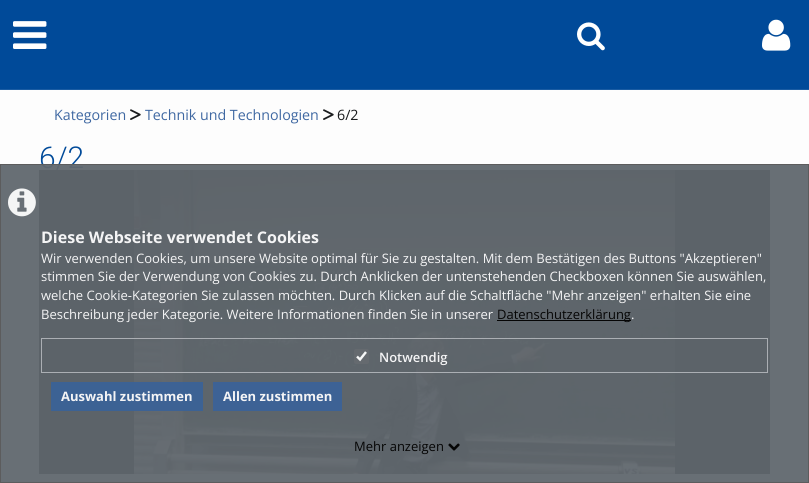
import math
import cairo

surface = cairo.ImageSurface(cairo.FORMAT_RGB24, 809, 483)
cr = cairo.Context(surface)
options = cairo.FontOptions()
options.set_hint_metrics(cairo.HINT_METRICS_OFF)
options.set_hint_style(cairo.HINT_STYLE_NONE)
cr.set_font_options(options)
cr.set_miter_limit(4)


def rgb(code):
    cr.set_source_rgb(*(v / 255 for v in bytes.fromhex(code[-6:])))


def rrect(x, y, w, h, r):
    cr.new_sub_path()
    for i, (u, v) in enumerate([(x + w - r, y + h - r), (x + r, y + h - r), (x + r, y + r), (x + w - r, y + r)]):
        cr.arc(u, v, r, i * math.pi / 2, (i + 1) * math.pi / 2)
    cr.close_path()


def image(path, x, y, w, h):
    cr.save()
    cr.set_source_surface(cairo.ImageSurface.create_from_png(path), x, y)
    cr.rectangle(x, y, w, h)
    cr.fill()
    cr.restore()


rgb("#fdfdfd")
cr.paint()
rgb("#004a99")
cr.rectangle(0, 0, 809, 89)
cr.fill()
rgb("#1a5ca3")
cr.rectangle(0, 89, 809, 1)
cr.fill()
image("img/1.png", 13, 21, 34, 28)
image("img/2.png", 577, 22, 28, 29)
image("img/3.png", 762, 19, 29, 32)
image("img/4.png", 130, 109, 11, 11)
image("img/4.png", 323, 109, 11, 11)
rgb("#000000")
cr.rectangle(39, 170, 731, 304)
cr.fill()
image("img/5.png", 134, 170, 541, 304)
gradient = cairo.LinearGradient(405, 170, 405, 474)
gradient.add_color_stop_rgba(0, 0, 0, 0, 0.8)
gradient.add_color_stop_rgba(1, 0, 0, 0, 0)
cr.set_source(gradient)
cr.rectangle(134, 170, 541, 296)
cr.fill()
cr.select_font_face("Open Sans")
cr.set_font_size(14.25)
rgb("#3f68a2")
cr.move_to(54, 120)
cr.show_text("Kategorien")
cr.move_to(145, 120)
cr.show_text("Technik und Technologien")
rgb("#1a1c1e")
cr.move_to(337, 120)
cr.show_text("6/2")
cr.select_font_face("Roboto Light")
cr.set_font_size(30)
rgb("#004a99")
cr.move_to(39, 168)
cr.show_text("6/2")
cr.set_source_rgba(0.38, 0.408, 0.435, 0.95)
cr.rectangle(0, 164, 809, 319)
cr.fill()
cr.rectangle(0.5, 164.5, 808, 318)
cr.set_source_rgba(0.361, 0.361, 0.361, 0.95)
cr.set_line_width(1)
cr.stroke()
image("img/6.png", 8, 188, 28, 29)
cr.select_font_face("Open Sans", cairo.FONT_SLANT_NORMAL, cairo.FONT_WEIGHT_BOLD)
cr.set_font_size(16)
rgb("#f4f4f5")
cr.move_to(41, 243)
cr.show_text("Diese Webseite verwendet Cookies")
cr.select_font_face("Open Sans")
cr.set_font_size(13)
for x, y, s in [
    (41, 263, "Wir verwenden Cookies, um unsere Website optimal für Sie zu gestalten. Mit dem Bestätigen des Buttons \"Akzeptieren\""),
    (41, 281, "stimmen Sie der Verwendung von Cookies zu. Durch Anklicken der untenstehenden Checkboxen können Sie auswählen,"),
    (41, 300, "welche Cookie-Kategorien Sie zulassen möchten. Durch Klicken auf die Schaltfläche \"Mehr anzeigen\" erhalten Sie eine"),
    (41, 319, "Beschreibung jeder Kategorie. Weitere Informationen finden Sie in unserer"),
]:
    cr.move_to(x, y)
    cr.show_text(s)
rgb("#050505")
cr.rectangle(497, 320, 134, 1)
cr.fill()
cr.move_to(497, 319)
cr.show_text("Datenschutzerklärung")
rgb("#f4f4f5")
cr.move_to(631, 319)
cr.show_text(".")
cr.rectangle(41.5, 338.5, 726, 34)
cr.set_source_rgba(0.69, 0.702, 0.722, 0.95)
cr.stroke()
rgb("#656a6f")
rrect(354, 349, 15, 15, 2)
cr.fill()
cr.new_path()
cr.move_to(357, 356.5)
cr.line_to(360, 359.5)
cr.line_to(366, 352)
rgb("#f7f8f8")
cr.set_line_width(2.4)
cr.stroke()
cr.select_font_face("Open Sans SemiBold")
rgb("#f4f4f5")
cr.move_to(379, 362)
cr.show_text("Notwendig")
cr.set_source_rgba(0.231, 0.384, 0.592, 0.95)
cr.rectangle(51, 382, 152, 29)
cr.fill()
cr.select_font_face("Open Sans", cairo.FONT_SLANT_NORMAL, cairo.FONT_WEIGHT_BOLD)
rgb("#f4f4f5")
cr.move_to(61, 401)
cr.show_text("Auswahl zustimmen")
rgb("#3d6295")
cr.rectangle(213, 382, 129, 29)
cr.fill()
rgb("#f4f4f5")
cr.move_to(223, 401)
cr.show_text("Allen zustimmen")
cr.select_font_face("Open Sans")
rgb("#050505")
cr.move_to(354, 451)
cr.show_text("Mehr anzeigen")
image("img/7.png", 448, 443, 12, 8)
surface.write_to_png("page.png")
